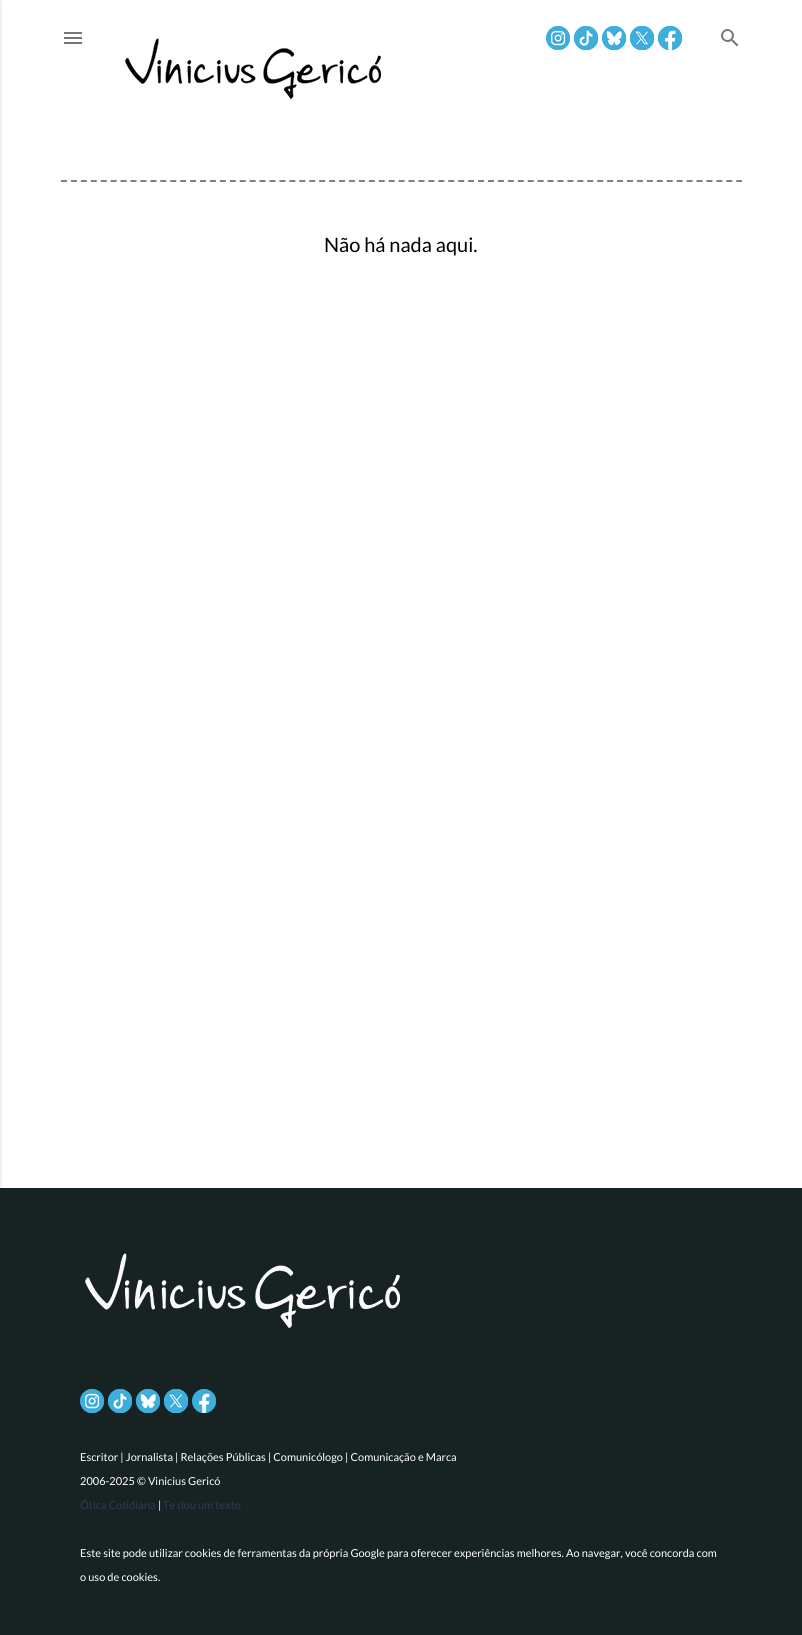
import math
import cairo

surface = cairo.ImageSurface(cairo.FORMAT_RGB24, 802, 1635)
cr = cairo.Context(surface)
options = cairo.FontOptions()
options.set_hint_metrics(cairo.HINT_METRICS_OFF)
options.set_hint_style(cairo.HINT_STYLE_NONE)
cr.set_font_options(options)
cr.set_miter_limit(4)


def rgb(code):
    cr.set_source_rgb(*(v / 255 for v in bytes.fromhex(code[-6:])))


def rrect(x, y, w, h, r):
    cr.new_sub_path()
    for i, (u, v) in enumerate([(x + w - r, y + h - r), (x + r, y + h - r), (x + r, y + r), (x + w - r, y + r)]):
        cr.arc(u, v, r, i * math.pi / 2, (i + 1) * math.pi / 2)
    cr.close_path()


def soft_shadow(x, y, w, h, r, blur, alpha):
    cr.push_group_with_content(cairo.CONTENT_ALPHA)
    cr.set_operator(cairo.OPERATOR_SOURCE)
    for i in range(15, -16, -2):
        e = blur * i / 6
        if min(w, h) + 2 * e > 0:
            cr.set_source_rgba(0, 0, 0, alpha * math.erfc((i - 1) / 8.5) / 2)
            rrect(x - e, y - e, w + 2 * e, h + 2 * e, max(0, min(r + e + blur * .6, min(w, h) / 2 + e)))
            cr.fill()
    cr.mask(cr.pop_group())


def image(path, x, y, w, h):
    cr.save()
    cr.set_source_surface(cairo.ImageSurface.create_from_png(path), x, y)
    cr.rectangle(x, y, w, h)
    cr.fill()
    cr.restore()


rgb("#ffffff")
cr.paint()
rgb("#172323")
cr.rectangle(0, 1188, 802, 447)
cr.fill()
rgb("#000000")
soft_shadow(-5, 0, 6, 1635, 0, 1.5, 0.1)
image("img/1.png", 64, 32, 18, 12)
image("img/2.png", 125, 38, 256, 62)
image("img/3.png", 546, 26, 24, 24)
image("img/4.png", 574, 26, 24, 24)
image("img/5.png", 602, 26, 24, 24)
image("img/6.png", 630, 26, 24, 24)
image("img/7.png", 658, 26, 24, 24)
image("img/8.png", 721, 29, 18, 18)
cr.new_path()
cr.move_to(61, 181)
cr.line_to(742, 181)
rgb("#808080")
cr.set_dash([6, 3.93])
cr.stroke()
image("img/9.png", 85, 1253, 315, 76)
image("img/10.png", 80, 1389, 24, 24)
image("img/11.png", 108, 1389, 24, 24)
image("img/12.png", 136, 1389, 24, 24)
image("img/13.png", 164, 1389, 24, 24)
image("img/14.png", 192, 1389, 24, 24)
cr.select_font_face("Lato")
cr.set_font_size(20)
rgb("#000000")
cr.move_to(324, 252)
cr.show_text("Não há nada aqui.")
cr.set_font_size(11)
rgb("#ffffff")
cr.move_to(80, 1461)
cr.show_text("Escritor | Jornalista | Relações Públicas | Comunicólogo | Comunicação e Marca")
cr.move_to(80, 1485)
cr.show_text("2006-2025 © Vinicius Gericó")
rgb("#2a3c53")
cr.move_to(80, 1509)
cr.show_text("Ótica Cotidiana")
rgb("#ffffff")
cr.move_to(158, 1509)
cr.show_text("|")
rgb("#2a3c53")
cr.move_to(163, 1509)
cr.show_text("Te dou um texto")
rgb("#ffffff")
cr.move_to(80, 1557)
cr.show_text("Este site pode utilizar cookies de ferramentas da própria Google para oferecer experiências melhores. Ao navegar, você concorda com")
cr.move_to(80, 1581)
cr.show_text("o uso de cookies.")
surface.write_to_png("page.png")
